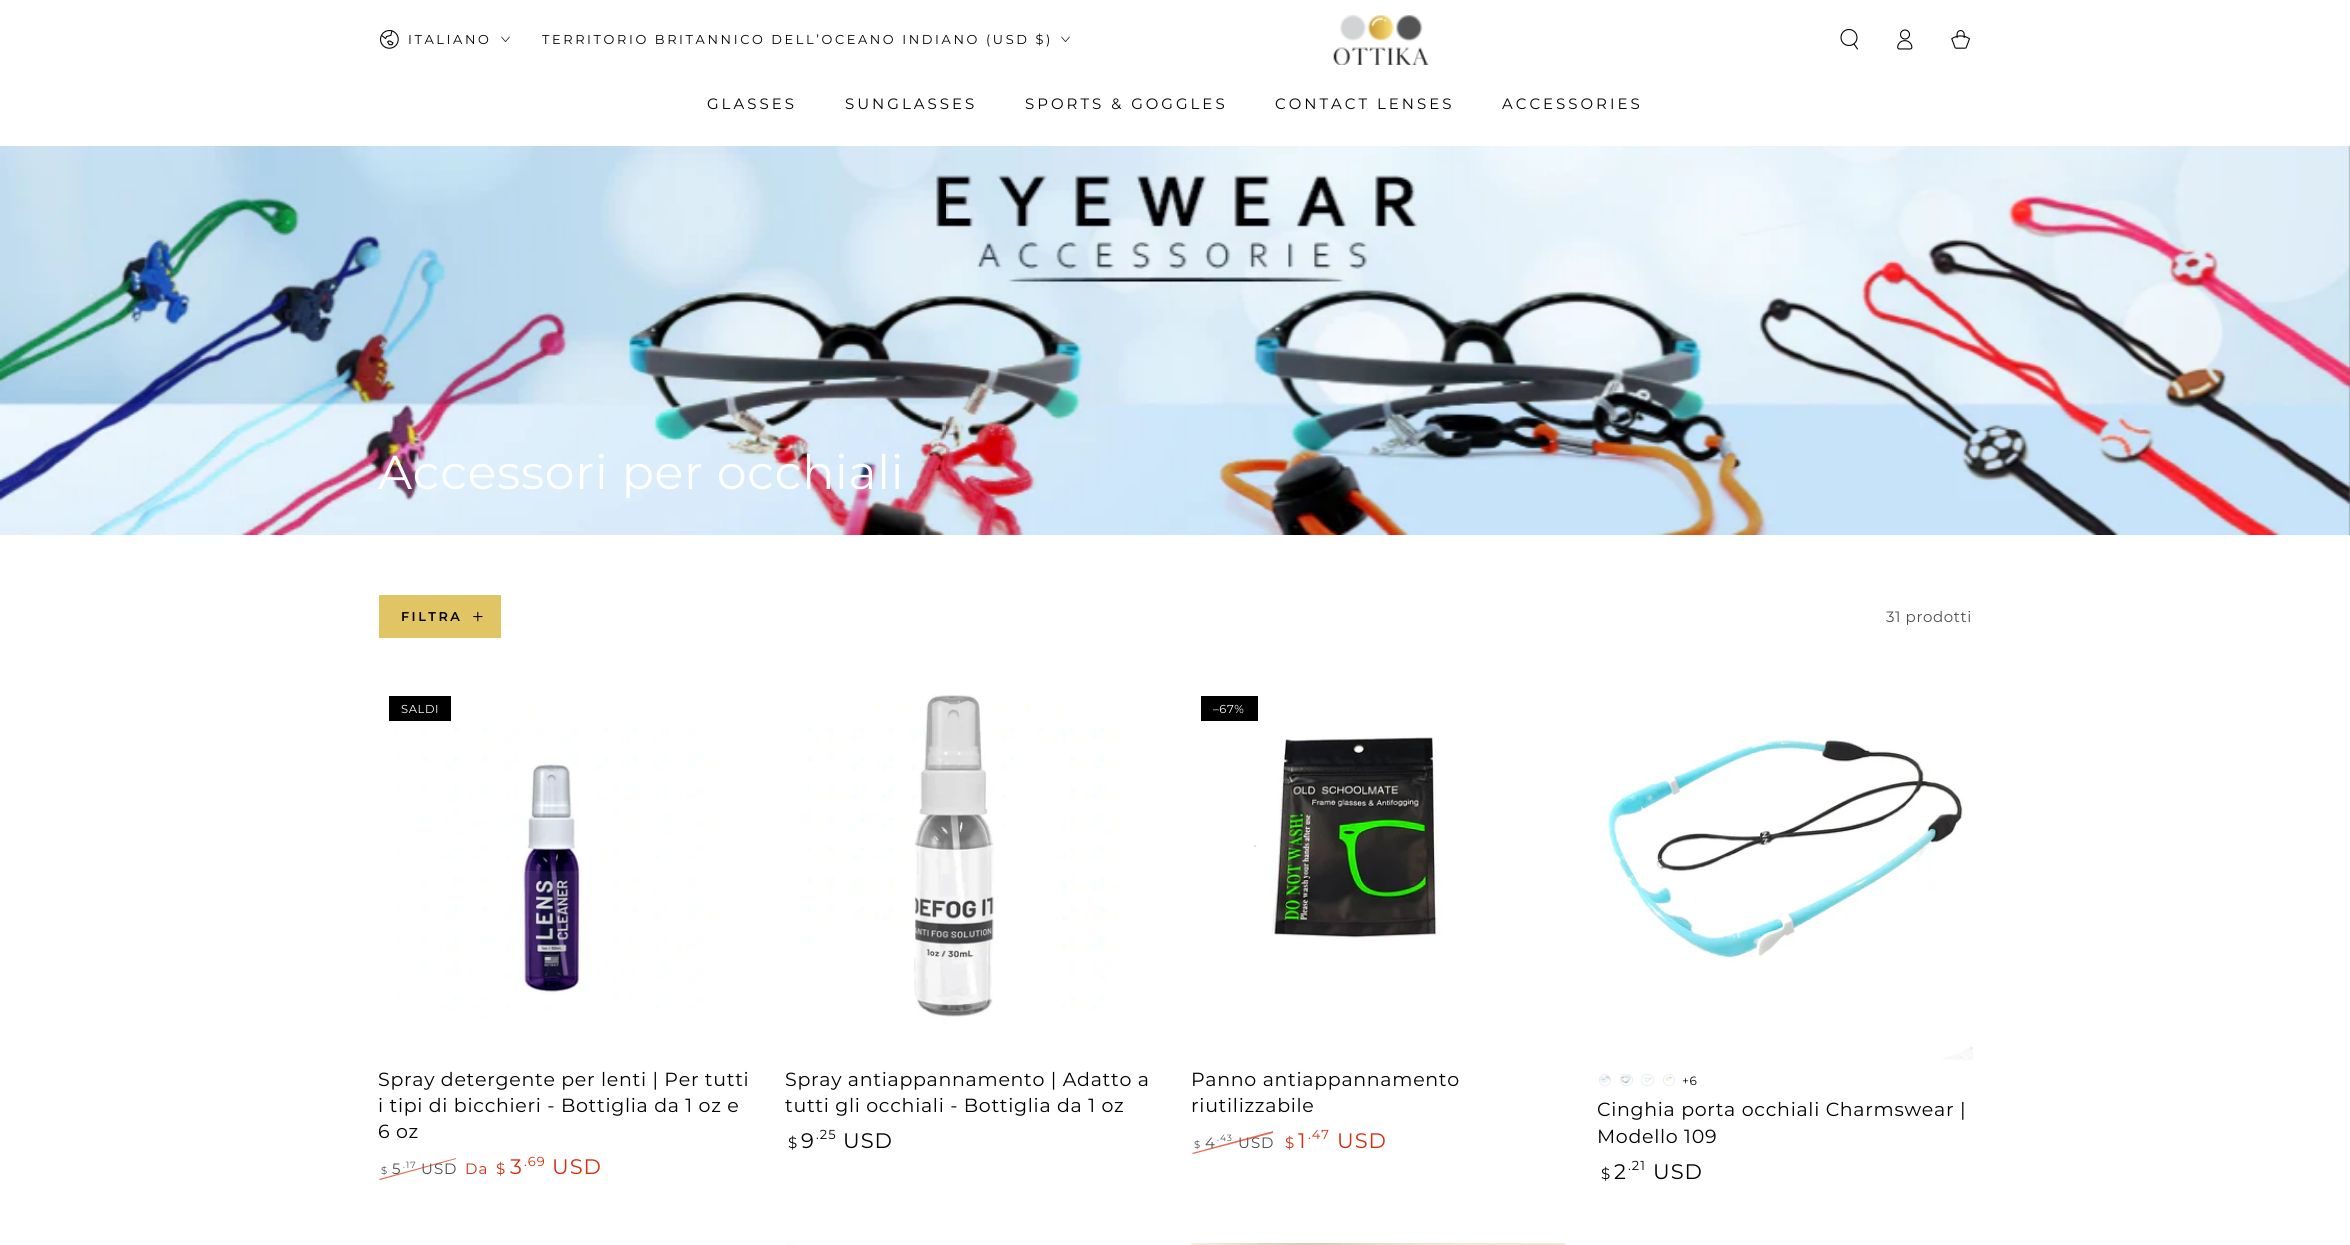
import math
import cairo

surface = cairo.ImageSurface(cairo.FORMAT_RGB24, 2350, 1245)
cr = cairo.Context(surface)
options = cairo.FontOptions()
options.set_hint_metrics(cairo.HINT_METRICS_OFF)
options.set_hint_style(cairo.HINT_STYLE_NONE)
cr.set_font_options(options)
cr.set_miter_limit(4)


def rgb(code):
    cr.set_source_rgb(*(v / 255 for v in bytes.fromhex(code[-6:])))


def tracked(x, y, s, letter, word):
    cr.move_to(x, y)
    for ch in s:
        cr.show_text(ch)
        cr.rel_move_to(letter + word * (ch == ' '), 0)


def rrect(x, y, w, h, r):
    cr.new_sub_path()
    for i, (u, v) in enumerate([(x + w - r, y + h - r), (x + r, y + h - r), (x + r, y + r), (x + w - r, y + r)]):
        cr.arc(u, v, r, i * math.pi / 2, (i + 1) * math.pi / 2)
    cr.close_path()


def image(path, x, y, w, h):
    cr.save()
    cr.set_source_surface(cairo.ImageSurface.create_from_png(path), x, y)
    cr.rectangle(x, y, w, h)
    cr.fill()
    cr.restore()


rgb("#ffffff")
cr.paint()
image("img/1.png", 380, 30, 19, 19)
image("img/2.png", 501, 36, 9, 6)
image("img/2.png", 1061, 36, 9, 6)
image("img/3.png", 1333, 15, 96, 50)
cr.arc(1849, 37.5, 8, 0, 2 * math.pi)
rgb("#000000")
cr.set_line_width(1.1)
cr.stroke()
cr.new_path()
cr.move_to(1854, 44)
cr.line_to(1857.5, 49)
cr.set_line_cap(cairo.LINE_CAP_ROUND)
cr.stroke()
image("img/4.png", 1897, 29, 16, 21)
image("img/5.png", 1951, 30, 20, 19)
rgb("#767676")
cr.rectangle(2348, 146, 2, 389)
cr.fill()
image("img/6.png", 0, 146, 2350, 389)
rgb("#e1c564")
cr.rectangle(379, 595, 122, 43)
cr.fill()
image("img/7.png", 473, 611, 10, 11)
image("img/8.png", 379, 686, 374, 374)
rgb("#000000")
cr.rectangle(389, 696, 62, 25)
cr.fill()
image("img/9.png", 785, 686, 374, 374)
image("img/10.png", 1191, 686, 374, 374)
cr.rectangle(1201, 696, 57, 25)
cr.fill()
image("img/11.png", 1598, 686, 375, 374)
image("img/12.png", 1599, 1075, 12, 8)
image("img/13.png", 1599, 1076, 12, 3)
cr.arc(1605, 1080, 5.6, 0, 2 * math.pi)
rgb("#e7eaef")
cr.set_line_width(0.8)
cr.set_line_cap(cairo.LINE_CAP_BUTT)
cr.stroke()
image("img/14.png", 1620, 1075, 11, 8)
image("img/15.png", 1620, 1075, 11, 5)
rrect(1620.4, 1074.4, 12.2, 11.2, 5.6)
cr.stroke()
image("img/16.png", 1644, 1077, 8, 6)
rrect(1641.4, 1074.4, 12.2, 11.2, 5.6)
cr.stroke()
image("img/17.png", 1665, 1075, 8, 6)
cr.arc(1669, 1080, 5.6, 0, 2 * math.pi)
cr.stroke()
image("img/18.png", 785, 1243, 374, 2)
image("img/19.png", 1191, 1243, 374, 2)
cr.select_font_face("Montserrat")
cr.set_font_size(12.9)
rgb("#000000")
tracked(408, 44, "ITALIANO", 2.6, 0)
tracked(542, 44, "TERRITORIO BRITANNICO DELL’OCEANO INDIANO (USD $)", 2.6, 0)
cr.set_font_size(15)
for x, y, s in [
    (707, 109, "GLASSES"),
    (845, 109, "SUNGLASSES"),
    (1025, 109, "SPORTS & GOGGLES"),
    (1275, 109, "CONTACT LENSES"),
    (1502, 109, "ACCESSORIES"),
]:
    tracked(x, y, s, 3, 0)
cr.set_font_size(47.5)
rgb("#ffffff")
tracked(378, 489, "Accessori per occhiali", 0.7, 0)
cr.select_font_face("Montserrat SemiBold")
cr.set_font_size(12.75)
rgb("#000000")
tracked(401, 621, "FILTRA", 2.5, 0)
cr.select_font_face("Montserrat")
cr.set_font_size(15)
rgb("#4d4d4d")
tracked(1886, 622, "31 prodotti", 0.6, 0)
cr.set_font_size(11.5)
rgb("#ffffff")
tracked(401, 713, "SALDI", 0.6, 0)
cr.set_font_size(19)
rgb("#000000")
for x, y, s in [
    (378, 1086, "Spray detergente per lenti | Per tutti"),
    (378, 1112, "i tipi di bicchieri - Bottiglia da 1 oz e"),
    (378, 1138, "6 oz"),
]:
    tracked(x, y, s, 0.7, 0)
cr.set_font_size(10)
rgb("#4d4d4d")
tracked(381, 1174, "$", 1, 0)
cr.set_font_size(15)
tracked(392, 1174, "5", 1, 0)
cr.set_font_size(9)
tracked(403, 1168, ".17", 1, 0)
cr.set_font_size(15)
tracked(421, 1174, "USD", 1, 0)
cr.set_source_rgba(0.843, 0.173, 0.051, 0.7)
cr.new_path()
cr.move_to(379, 1179)
cr.line_to(456, 1158)
cr.line_to(456, 1159)
cr.line_to(380, 1180)
cr.close_path()
cr.fill()
rgb("#d72c0d")
tracked(465, 1174, "Da", 1, 0)
tracked(496, 1174, "$", 1, 0)
cr.set_font_size(21)
tracked(510, 1174, "3", 1, 0)
cr.set_font_size(13)
tracked(524, 1166, ".69", 1, 0)
cr.set_font_size(21)
tracked(552, 1174, "USD", 1, 0)
cr.set_font_size(19)
rgb("#000000")
tracked(785, 1086, "Spray antiappannamento | Adatto a", 0.7, 0)
tracked(785, 1112, "tutti gli occhiali - Bottiglia da 1 oz", 0.7, 0)
cr.set_font_size(15)
tracked(788, 1148, "$", 1, 0)
cr.set_font_size(21)
tracked(801, 1148, "9", 1, 0)
cr.set_font_size(13)
tracked(816, 1139, ".25", 1, 0)
cr.set_font_size(21)
tracked(843, 1148, "USD", 1, 0)
cr.set_font_size(11.5)
rgb("#ffffff")
tracked(1213, 713, "–67%", 0.6, 0)
cr.set_font_size(19)
rgb("#000000")
tracked(1191, 1086, "Panno antiappannamento", 0.7, 0)
tracked(1191, 1112, "riutilizzabile", 0.7, 0)
cr.set_font_size(10)
rgb("#4d4d4d")
tracked(1194, 1148, "$", 1, 0)
cr.set_font_size(15)
tracked(1205, 1148, "4", 1, 0)
cr.set_font_size(9)
tracked(1217, 1141, ".43", 1, 0)
cr.set_font_size(15)
tracked(1238, 1148, "USD", 1, 0)
cr.set_source_rgba(0.843, 0.173, 0.051, 0.7)
cr.new_path()
cr.move_to(1192, 1153)
cr.line_to(1273, 1131)
cr.line_to(1273, 1133)
cr.line_to(1193, 1154)
cr.close_path()
cr.fill()
rgb("#d72c0d")
tracked(1285, 1148, "$", 1, 0)
cr.set_font_size(21)
tracked(1298, 1148, "1", 1, 0)
cr.set_font_size(13)
tracked(1308, 1139, ".47", 1, 0)
cr.set_font_size(21)
tracked(1337, 1148, "USD", 1, 0)
cr.set_font_size(12)
rgb("#000000")
tracked(1682, 1085, "+6", 0.6, 0)
cr.set_font_size(19)
tracked(1597, 1116, "Cinghia porta occhiali Charmswear |", 0.7, 0)
tracked(1597, 1143, "Modello 109", 0.7, 0)
cr.set_font_size(15)
tracked(1601, 1179, "$", 1, 0)
cr.set_font_size(21)
tracked(1614, 1179, "2", 1, 0)
cr.set_font_size(13)
tracked(1628, 1170, ".21", 1, 0)
cr.set_font_size(21)
tracked(1653, 1179, "USD", 1, 0)
surface.write_to_png("page.png")
